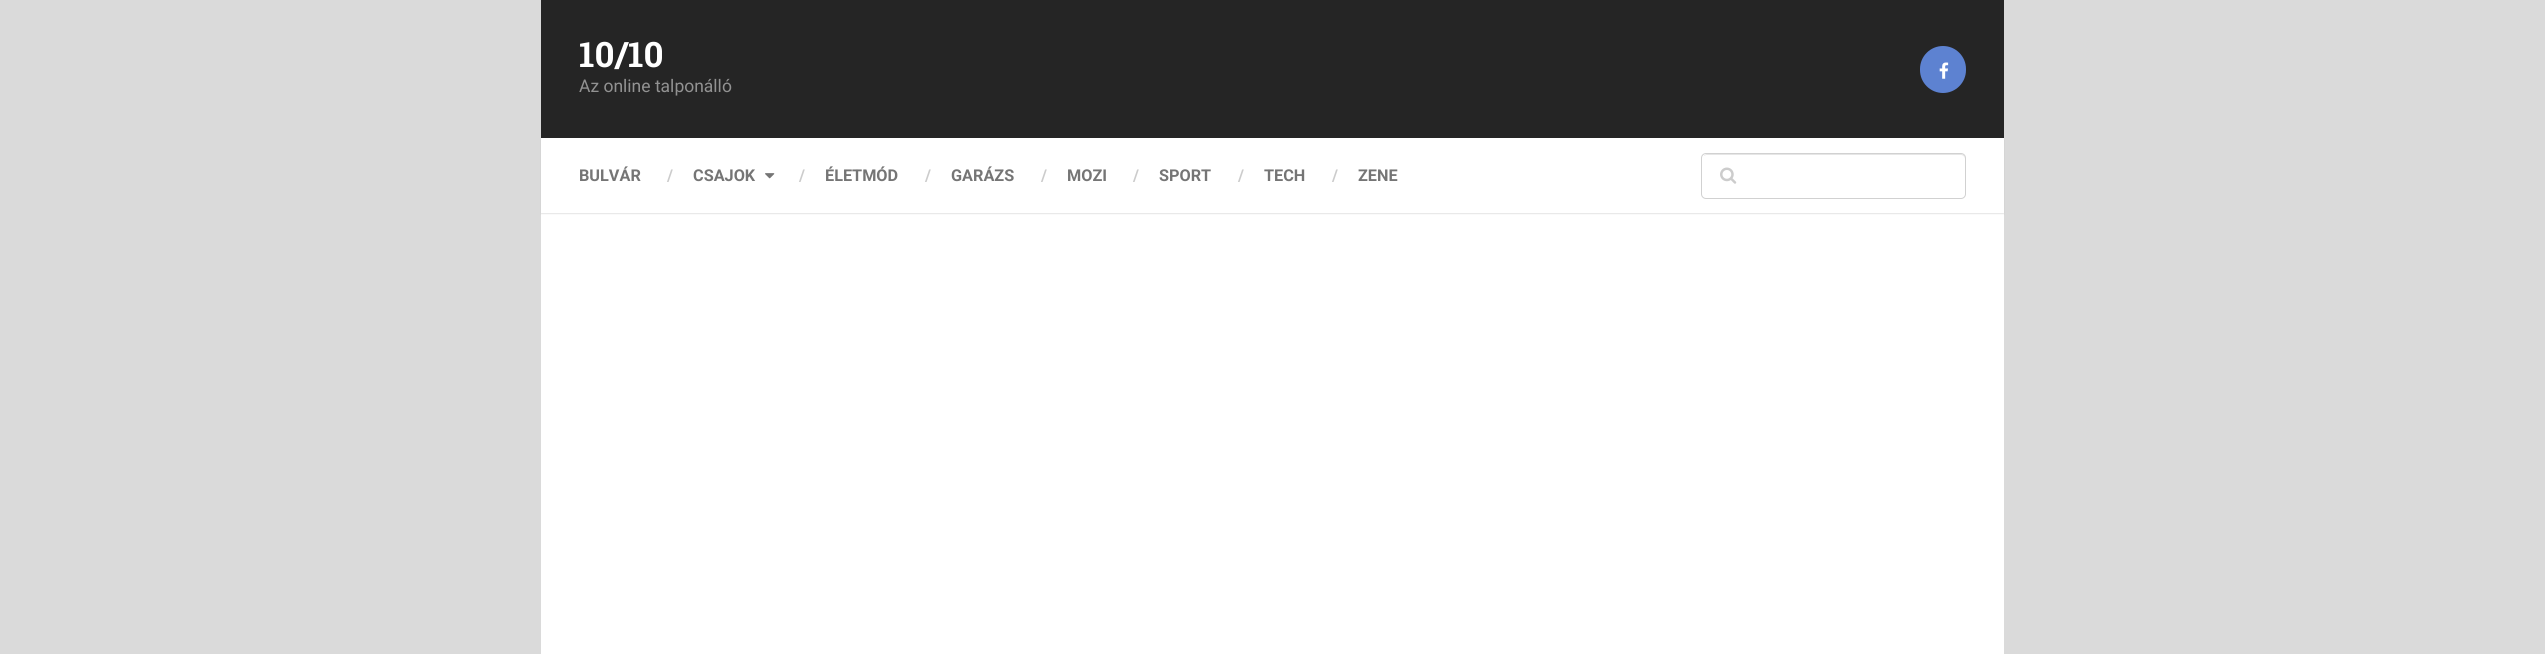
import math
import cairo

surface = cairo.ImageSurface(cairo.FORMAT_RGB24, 2545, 654)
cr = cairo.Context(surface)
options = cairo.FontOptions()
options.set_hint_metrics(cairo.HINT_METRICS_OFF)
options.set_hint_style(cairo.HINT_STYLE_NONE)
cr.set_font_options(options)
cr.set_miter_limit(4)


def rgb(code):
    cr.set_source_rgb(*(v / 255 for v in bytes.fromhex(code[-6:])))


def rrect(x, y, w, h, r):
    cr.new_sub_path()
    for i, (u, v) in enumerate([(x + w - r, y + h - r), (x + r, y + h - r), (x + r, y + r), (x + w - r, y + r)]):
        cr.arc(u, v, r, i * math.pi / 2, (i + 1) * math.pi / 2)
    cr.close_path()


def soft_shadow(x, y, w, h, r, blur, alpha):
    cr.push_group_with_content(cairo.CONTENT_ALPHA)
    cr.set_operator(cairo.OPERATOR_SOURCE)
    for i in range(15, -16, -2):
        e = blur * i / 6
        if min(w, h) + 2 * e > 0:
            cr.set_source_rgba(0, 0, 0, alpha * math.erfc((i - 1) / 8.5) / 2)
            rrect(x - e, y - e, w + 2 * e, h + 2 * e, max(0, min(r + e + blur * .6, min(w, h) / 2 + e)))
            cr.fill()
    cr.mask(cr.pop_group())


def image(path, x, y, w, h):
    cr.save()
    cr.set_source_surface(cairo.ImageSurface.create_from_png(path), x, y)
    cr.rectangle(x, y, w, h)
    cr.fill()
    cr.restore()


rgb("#dadada")
cr.paint()
rgb("#252525")
cr.rectangle(541, 0, 1463, 138)
cr.fill()
rgb("#5d82d1")
rrect(1920, 46, 46, 47, 23)
cr.fill()
image("img/1.png", 1939, 62, 10, 17)
rgb("#ffffff")
cr.rectangle(541, 213, 1463, 441)
cr.fill()
rgb("#000000")
soft_shadow(541, 139, 1463, 75, 0, 0.5, 0.1)
rgb("#ffffff")
cr.rectangle(541, 138, 1463, 75)
cr.fill()
image("img/2.png", 765, 173, 10, 6)
rgb("#e6e6e6")
cr.new_path()
cr.move_to(1706, 155)
cr.line_to(1961, 155)
cr.curve_to(1963, 155, 1965, 157, 1965, 159)
cr.line_to(1965, 158)
cr.curve_to(1965, 156, 1963, 154, 1961, 154)
cr.line_to(1707, 154)
cr.curve_to(1706, 154, 1704, 155, 1704, 156)
cr.close_path()
cr.fill()
rrect(1701.5, 153.5, 264, 45, 4.5)
rgb("#d1d1d1")
cr.set_line_width(1)
cr.stroke()
image("img/3.png", 1720, 167, 17, 17)
cr.select_font_face("Roboto Slab", cairo.FONT_SLANT_NORMAL, cairo.FONT_WEIGHT_BOLD)
cr.set_font_size(35)
rgb("#ffffff")
cr.move_to(579, 67)
cr.show_text("10/10")
cr.select_font_face("Roboto")
cr.set_font_size(17.5)
rgb("#929292")
cr.move_to(579, 92)
cr.show_text("Az online talponálló")
cr.select_font_face("Roboto", cairo.FONT_SLANT_NORMAL, cairo.FONT_WEIGHT_BOLD)
cr.set_font_size(16.25)
rgb("#757575")
cr.move_to(579, 181)
cr.show_text("BULVÁR")
rgb("#cccccc")
cr.move_to(667, 181)
cr.show_text("/")
rgb("#757575")
cr.move_to(693, 181)
cr.show_text("CSAJOK")
rgb("#cccccc")
cr.move_to(799, 181)
cr.show_text("/")
rgb("#757575")
cr.move_to(825, 181)
cr.show_text("ÉLETMÓD")
rgb("#cccccc")
cr.move_to(925, 181)
cr.show_text("/")
rgb("#757575")
cr.move_to(951, 181)
cr.show_text("GARÁZS")
rgb("#cccccc")
cr.move_to(1041, 181)
cr.show_text("/")
rgb("#757575")
cr.move_to(1067, 181)
cr.show_text("MOZI")
rgb("#cccccc")
cr.move_to(1133, 181)
cr.show_text("/")
rgb("#757575")
cr.move_to(1159, 181)
cr.show_text("SPORT")
rgb("#cccccc")
cr.move_to(1238, 181)
cr.show_text("/")
rgb("#757575")
cr.move_to(1264, 181)
cr.show_text("TECH")
rgb("#cccccc")
cr.move_to(1332, 181)
cr.show_text("/")
rgb("#757575")
cr.move_to(1358, 181)
cr.show_text("ZENE")
surface.write_to_png("page.png")
